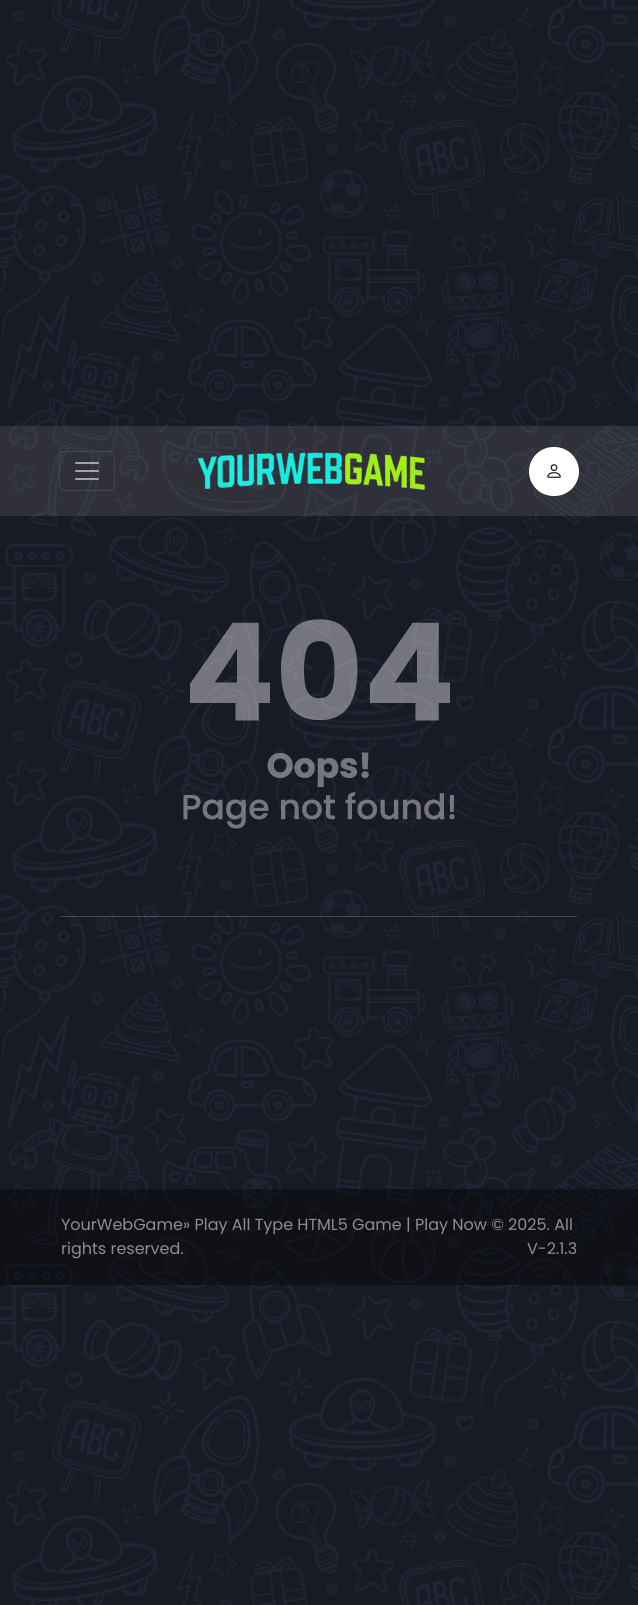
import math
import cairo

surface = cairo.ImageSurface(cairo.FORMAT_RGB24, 638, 1605)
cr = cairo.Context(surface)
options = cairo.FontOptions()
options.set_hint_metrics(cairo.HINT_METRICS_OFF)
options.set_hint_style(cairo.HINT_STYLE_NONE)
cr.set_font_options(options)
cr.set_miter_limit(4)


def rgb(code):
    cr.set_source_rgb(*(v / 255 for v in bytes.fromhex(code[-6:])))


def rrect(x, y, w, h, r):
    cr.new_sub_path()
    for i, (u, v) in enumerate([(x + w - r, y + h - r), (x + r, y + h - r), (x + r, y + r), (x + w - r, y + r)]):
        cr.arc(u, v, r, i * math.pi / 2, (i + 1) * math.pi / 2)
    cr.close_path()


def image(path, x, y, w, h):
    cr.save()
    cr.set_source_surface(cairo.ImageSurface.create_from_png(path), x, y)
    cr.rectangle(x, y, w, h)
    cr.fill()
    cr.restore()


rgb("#ffffff")
cr.paint()
image("img/1.png", 0, 0, 638, 1605)
cr.set_source_rgba(1, 1, 1, 0.1)
cr.rectangle(0, 426, 638, 90)
cr.fill()
rrect(59.5, 451.5, 55, 39, 5.5)
cr.set_line_width(1)
cr.stroke()
image("img/2.png", 75, 462, 24, 18)
image("img/3.png", 197, 452, 228, 38)
rgb("#ffffff")
rrect(529, 447, 50, 49, 24.5)
cr.fill()
image("img/4.png", 547, 464, 14, 14)
image("img/5.png", 183, 619, 272, 210)
cr.set_source_rgba(1, 1, 1, 0.2)
cr.rectangle(61, 916, 516, 1)
cr.fill()
cr.set_source_rgba(0, 0, 0, 0.4)
cr.rectangle(0, 1189, 638, 96)
cr.fill()
cr.select_font_face("Poppins")
cr.set_font_size(16)
rgb("#8d8e90")
for x, y, s in [
    (61, 1230, "YourWebGame» Play All Type HTML5 Game | Play Now © 2025. All"),
    (61, 1254, "rights reserved."),
    (527, 1254, "V-2.1.3"),
]:
    cr.move_to(x, y)
    cr.show_text(s)
surface.write_to_png("page.png")
